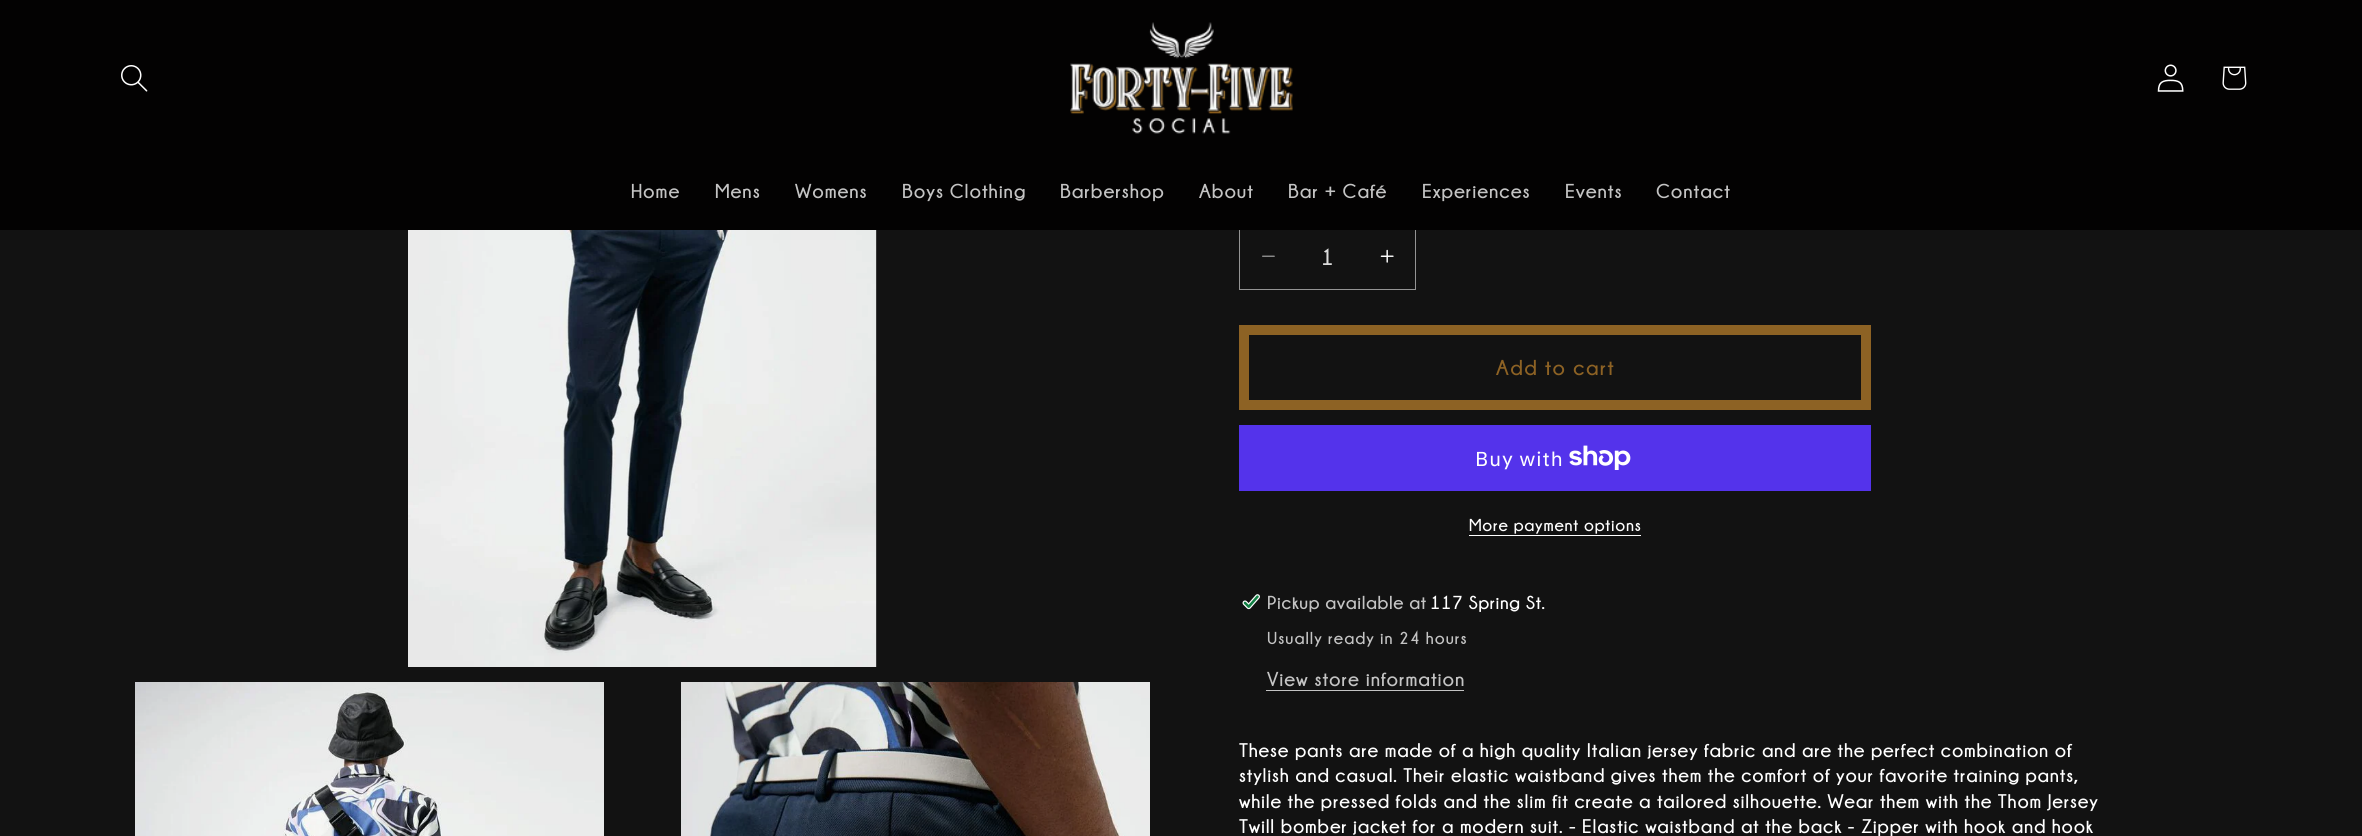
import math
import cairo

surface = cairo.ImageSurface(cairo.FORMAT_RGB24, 2362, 836)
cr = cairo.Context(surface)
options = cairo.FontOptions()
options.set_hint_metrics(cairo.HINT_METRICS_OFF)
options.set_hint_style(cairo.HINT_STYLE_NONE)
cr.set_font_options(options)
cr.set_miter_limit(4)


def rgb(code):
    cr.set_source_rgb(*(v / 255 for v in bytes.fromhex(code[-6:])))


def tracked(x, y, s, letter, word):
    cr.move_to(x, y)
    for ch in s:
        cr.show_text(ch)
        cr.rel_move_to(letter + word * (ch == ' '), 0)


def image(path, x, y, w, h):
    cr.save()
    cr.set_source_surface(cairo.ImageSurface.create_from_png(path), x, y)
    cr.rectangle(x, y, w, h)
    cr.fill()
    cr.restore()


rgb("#121212")
cr.paint()
image("img/8.png", 1262, 255, 13, 2)
image("img/9.png", 1380, 249, 14, 14)
cr.rectangle(1239.5, 223.5, 176, 66)
rgb("#949494")
cr.set_line_width(1)
cr.stroke()
rgb("#030202")
cr.rectangle(0, 0, 2362, 230)
cr.fill()
image("img/1.png", 121, 65, 27, 27)
image("img/2.png", 1070, 22, 223, 112)
image("img/3.png", 2157, 64, 27, 28)
image("img/4.png", 2222, 66, 25, 24)
image("img/5.png", 408, 230, 469, 437)
image("img/6.png", 135, 682, 469, 154)
image("img/7.png", 681, 682, 469, 154)
cr.rectangle(1244, 330, 622, 75)
rgb("#8d6224")
cr.set_line_width(10)
cr.stroke()
rgb("#5433eb")
cr.rectangle(1239, 425, 632, 66)
cr.fill()
image("img/10.png", 1569, 445, 62, 25)
rgb("#ffffff")
cr.rectangle(1469, 535, 172, 1)
cr.fill()
image("img/11.png", 1242, 594, 18, 16)
rgb("#c4c4c4")
cr.rectangle(1266, 690, 198, 1)
cr.fill()
cr.select_font_face("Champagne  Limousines", cairo.FONT_SLANT_NORMAL, cairo.FONT_WEIGHT_BOLD)
cr.set_font_size(20.1)
for x, y, s in [
    (631, 198, "Home"),
    (715, 198, "Mens"),
    (795, 198, "Womens"),
    (902, 198, "Boys Clothing"),
    (1060, 198, "Barbershop"),
    (1199, 198, "About"),
    (1288, 198, "Bar + Café"),
    (1422, 198, "Experiences"),
    (1565, 198, "Events"),
    (1656, 198, "Contact"),
]:
    tracked(x, y, s, 0.9, 0)
cr.set_font_size(23)
rgb("#dbdbdb")
cr.move_to(1321, 265)
cr.show_text("1")
cr.set_font_size(21.5)
rgb("#8d6224")
tracked(1496, 375, "Add to cart", 1.5, 0)
cr.select_font_face("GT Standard")
cr.set_font_size(20)
rgb("#ffffff")
tracked(1475, 466, "Buy with", 0.9, 0)
cr.select_font_face("Champagne  Limousines", cairo.FONT_SLANT_NORMAL, cairo.FONT_WEIGHT_BOLD)
cr.set_font_size(17.25)
tracked(1469, 531, "More payment options", 0.75, 0)
cr.set_font_size(18.75)
rgb("#c4c4c4")
tracked(1267, 609, "Pickup available at", 0.6, 0)
rgb("#ffffff")
tracked(1430, 609, "117 Spring St.", 0.6, 0)
cr.set_font_size(17.25)
rgb("#c4c4c4")
tracked(1267, 644, "Usually ready in 24 hours", 1, 0)
cr.set_font_size(20.1)
tracked(1267, 686, "View store information", 0.9, 0)
cr.set_font_size(19.7)
rgb("#ffffff")
for x, y, s in [
    (1239, 757, "These pants are made of a high quality Italian jersey fabric and are the perfect combination of"),
    (1239, 782, "stylish and casual. Their elastic waistband gives them the comfort of your favorite training pants,"),
    (1239, 808, "while the pressed folds and the slim fit create a tailored silhouette. Wear them with the Thom Jersey"),
    (1239, 833, "Twill bomber jacket for a modern suit. - Elastic waistband at the back - Zipper with hook and hook"),
]:
    tracked(x, y, s, 0.79, 0)
surface.write_to_png("page.png")
